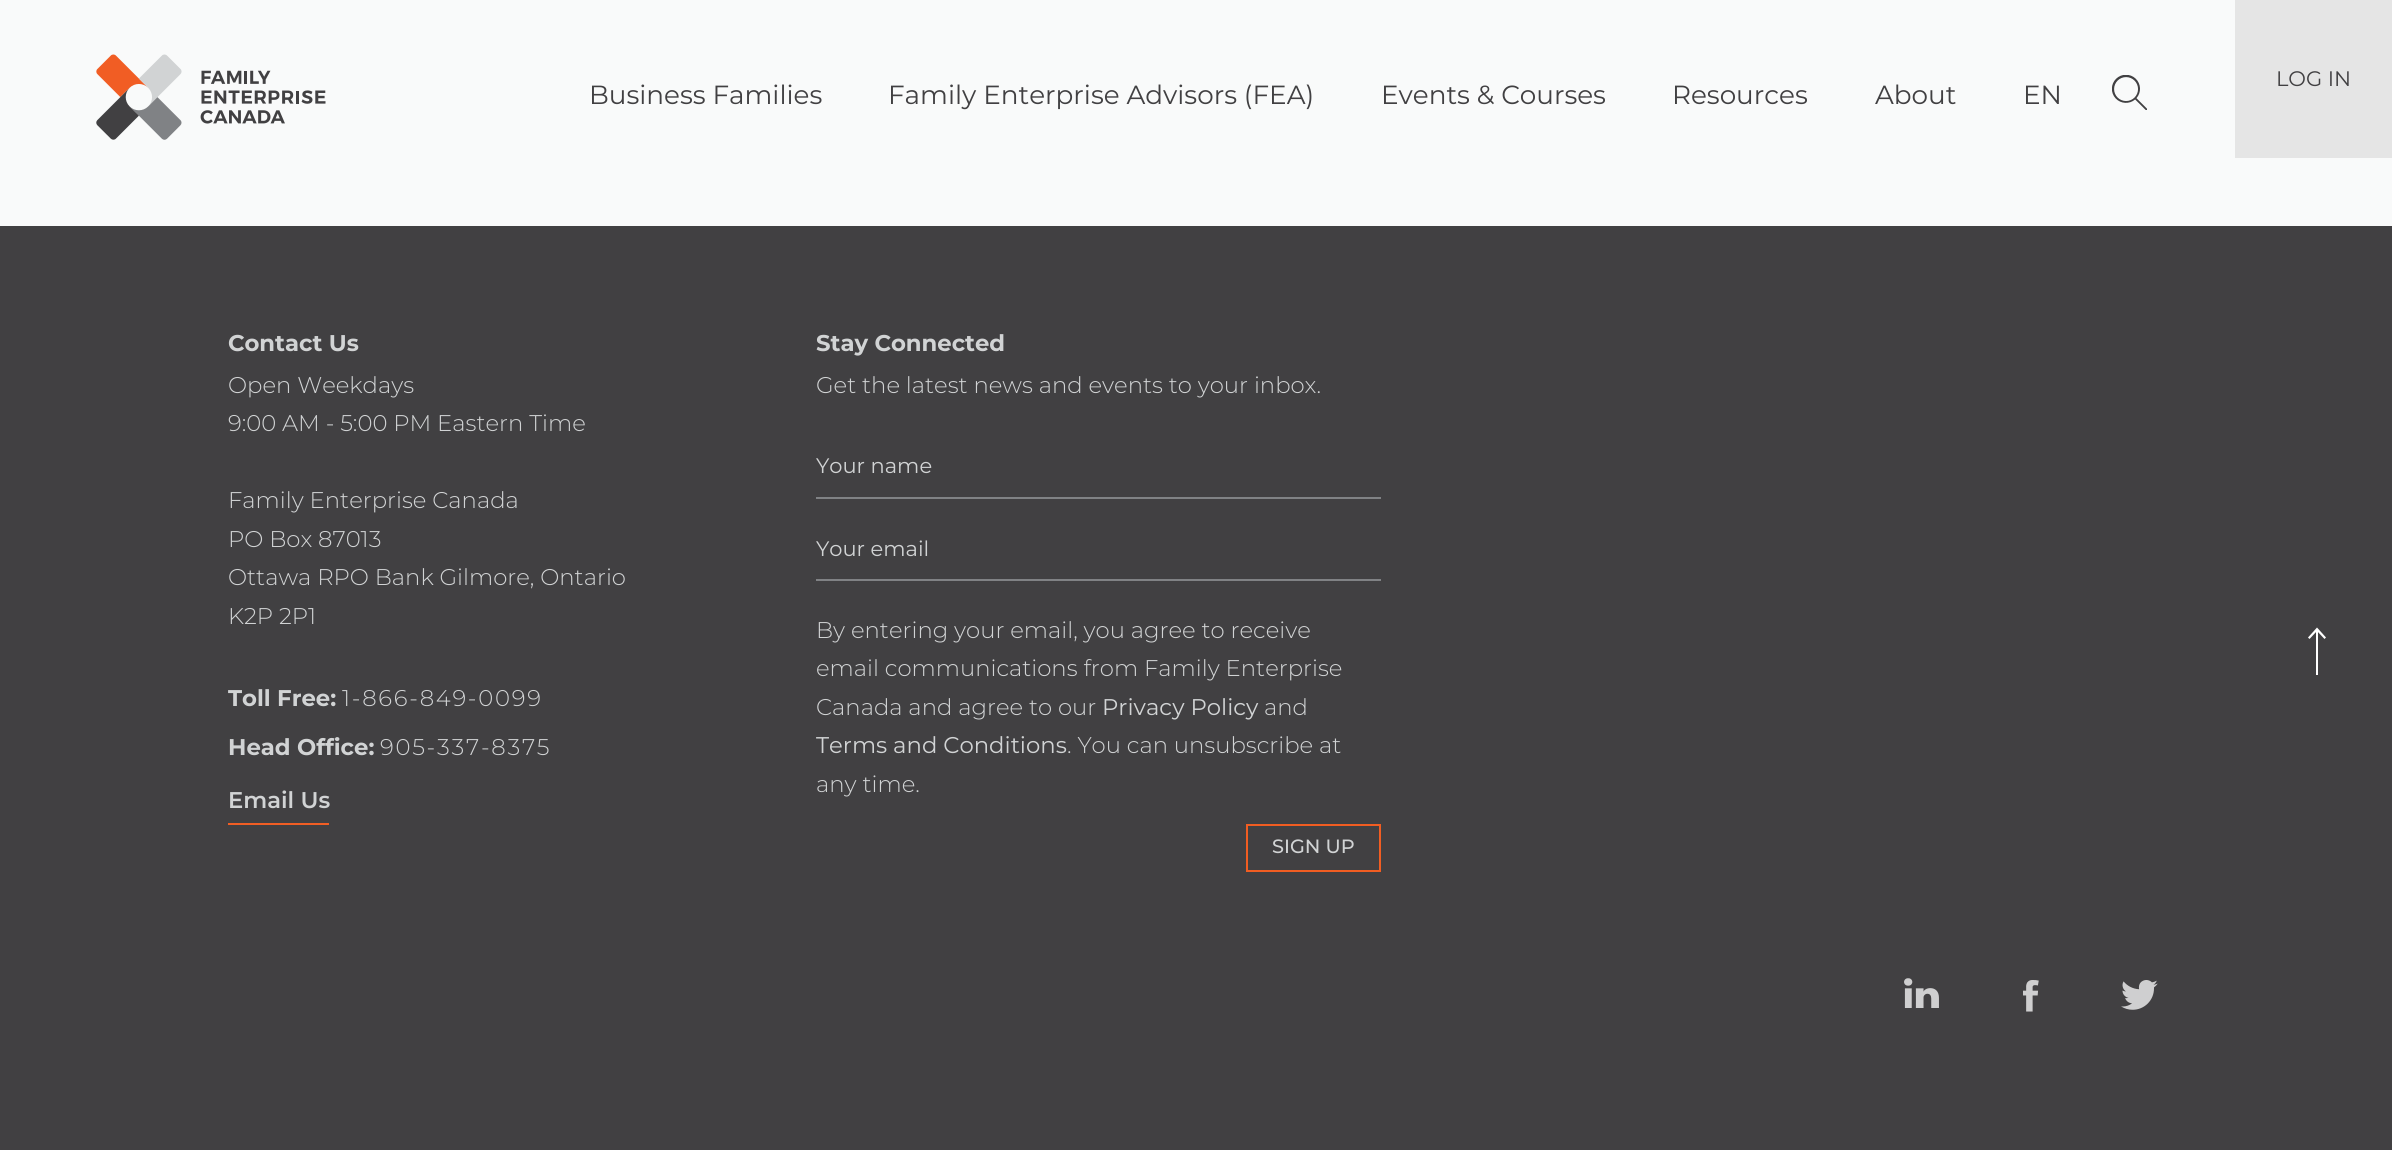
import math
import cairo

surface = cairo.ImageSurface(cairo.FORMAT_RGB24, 2392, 1150)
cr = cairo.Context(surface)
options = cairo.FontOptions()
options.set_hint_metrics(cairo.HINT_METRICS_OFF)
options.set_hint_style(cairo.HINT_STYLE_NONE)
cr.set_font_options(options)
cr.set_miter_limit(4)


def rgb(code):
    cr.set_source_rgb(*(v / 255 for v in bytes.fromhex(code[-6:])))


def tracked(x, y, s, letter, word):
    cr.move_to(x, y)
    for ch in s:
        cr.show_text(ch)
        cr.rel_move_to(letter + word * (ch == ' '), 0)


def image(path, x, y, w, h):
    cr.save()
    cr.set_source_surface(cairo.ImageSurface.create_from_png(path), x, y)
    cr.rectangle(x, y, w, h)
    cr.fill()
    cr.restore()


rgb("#f9fafa")
cr.paint()
image("img/1.png", 96, 54, 230, 86)
image("img/2.png", 2112, 75, 35, 35)
for x, y, w, h, color in [
    (2235, 0, 157, 158, "#e5e5e5"),
    (0, 226, 2392, 924, "#414042"),
    (228, 823, 101, 2, "#f15e24"),
    (816, 497, 565, 2, "#808285"),
    (816, 579, 565, 2, "#808285"),
]:
    rgb(color)
    cr.rectangle(x, y, w, h)
    cr.fill()
cr.rectangle(1247, 825, 133, 46)
rgb("#f15d22")
cr.stroke()
image("img/3.png", 1904, 978, 35, 30)
image("img/4.png", 2023, 980, 16, 32)
image("img/5.png", 2121, 980, 37, 30)
rgb("#ffffff")
cr.rectangle(2316, 630, 2, 45)
cr.fill()
cr.new_path()
cr.move_to(2326, 637.5)
cr.line_to(2324.5, 639)
cr.line_to(2317, 631)
cr.line_to(2309.5, 639)
cr.line_to(2308, 637.5)
cr.line_to(2317, 627.5)
cr.close_path()
cr.fill()
cr.select_font_face("Montserrat")
cr.set_font_size(26.25)
rgb("#414042")
for x, y, s in [
    (589, 104, "Business Families"),
    (888, 104, "Family Enterprise Advisors (FEA)"),
    (1381, 104, "Events & Courses"),
    (1672, 104, "Resources"),
    (1875, 104, "About"),
    (2023, 104, "EN"),
]:
    cr.move_to(x, y)
    cr.show_text(s)
cr.set_font_size(21)
cr.move_to(2276, 86)
cr.show_text("LOG IN")
cr.select_font_face("Montserrat", cairo.FONT_SLANT_NORMAL, cairo.FONT_WEIGHT_BOLD)
cr.set_font_size(22.75)
rgb("#d1d3d4")
cr.move_to(228, 351)
cr.show_text("Contact Us")
cr.select_font_face("Montserrat Light")
for x, y, s in [
    (228, 393, "Open Weekdays"),
    (228, 431, "9:00 AM - 5:00 PM Eastern Time"),
    (228, 508, "Family Enterprise Canada"),
    (228, 547, "PO Box 87013"),
    (228, 585, "Ottawa RPO Bank Gilmore, Ontario"),
    (228, 624, "K2P 2P1"),
]:
    cr.move_to(x, y)
    cr.show_text(s)
cr.select_font_face("Montserrat", cairo.FONT_SLANT_NORMAL, cairo.FONT_WEIGHT_BOLD)
cr.move_to(228, 706)
cr.show_text("Toll Free:")
cr.select_font_face("Montserrat Light")
tracked(342, 706, "1-866-849-0099", 1.75, 0)
cr.select_font_face("Montserrat", cairo.FONT_SLANT_NORMAL, cairo.FONT_WEIGHT_BOLD)
cr.move_to(228, 755)
cr.show_text("Head Office:")
cr.select_font_face("Montserrat Light")
tracked(380, 755, "905-337-8375", 1.75, 0)
cr.select_font_face("Montserrat SemiBold")
cr.move_to(228, 808)
cr.show_text("Email Us")
cr.select_font_face("Montserrat", cairo.FONT_SLANT_NORMAL, cairo.FONT_WEIGHT_BOLD)
cr.move_to(816, 351)
cr.show_text("Stay Connected")
cr.select_font_face("Montserrat Light")
cr.move_to(816, 393)
cr.show_text("Get the latest news and events to your inbox.")
cr.select_font_face("Montserrat")
cr.set_font_size(21)
cr.move_to(816, 473)
cr.show_text("Your name")
cr.move_to(816, 556)
cr.show_text("Your email")
cr.select_font_face("Montserrat Light")
cr.set_font_size(22.75)
for x, y, s in [
    (816, 638, "By entering your email, you agree to receive"),
    (816, 676, "email communications from Family Enterprise"),
    (816, 715, "Canada and agree to our"),
]:
    cr.move_to(x, y)
    cr.show_text(s)
cr.select_font_face("Montserrat")
cr.move_to(1102, 715)
cr.show_text("Privacy Policy")
cr.select_font_face("Montserrat Light")
cr.move_to(1264, 715)
cr.show_text("and")
cr.select_font_face("Montserrat")
cr.move_to(816, 753)
cr.show_text("Terms and Conditions")
cr.select_font_face("Montserrat Light")
cr.move_to(1067, 753)
cr.show_text(". You can unsubscribe at")
cr.move_to(816, 792)
cr.show_text("any time.")
cr.select_font_face("Montserrat Medium")
cr.set_font_size(19.25)
cr.move_to(1272, 853)
cr.show_text("SIGN UP")
surface.write_to_png("page.png")
